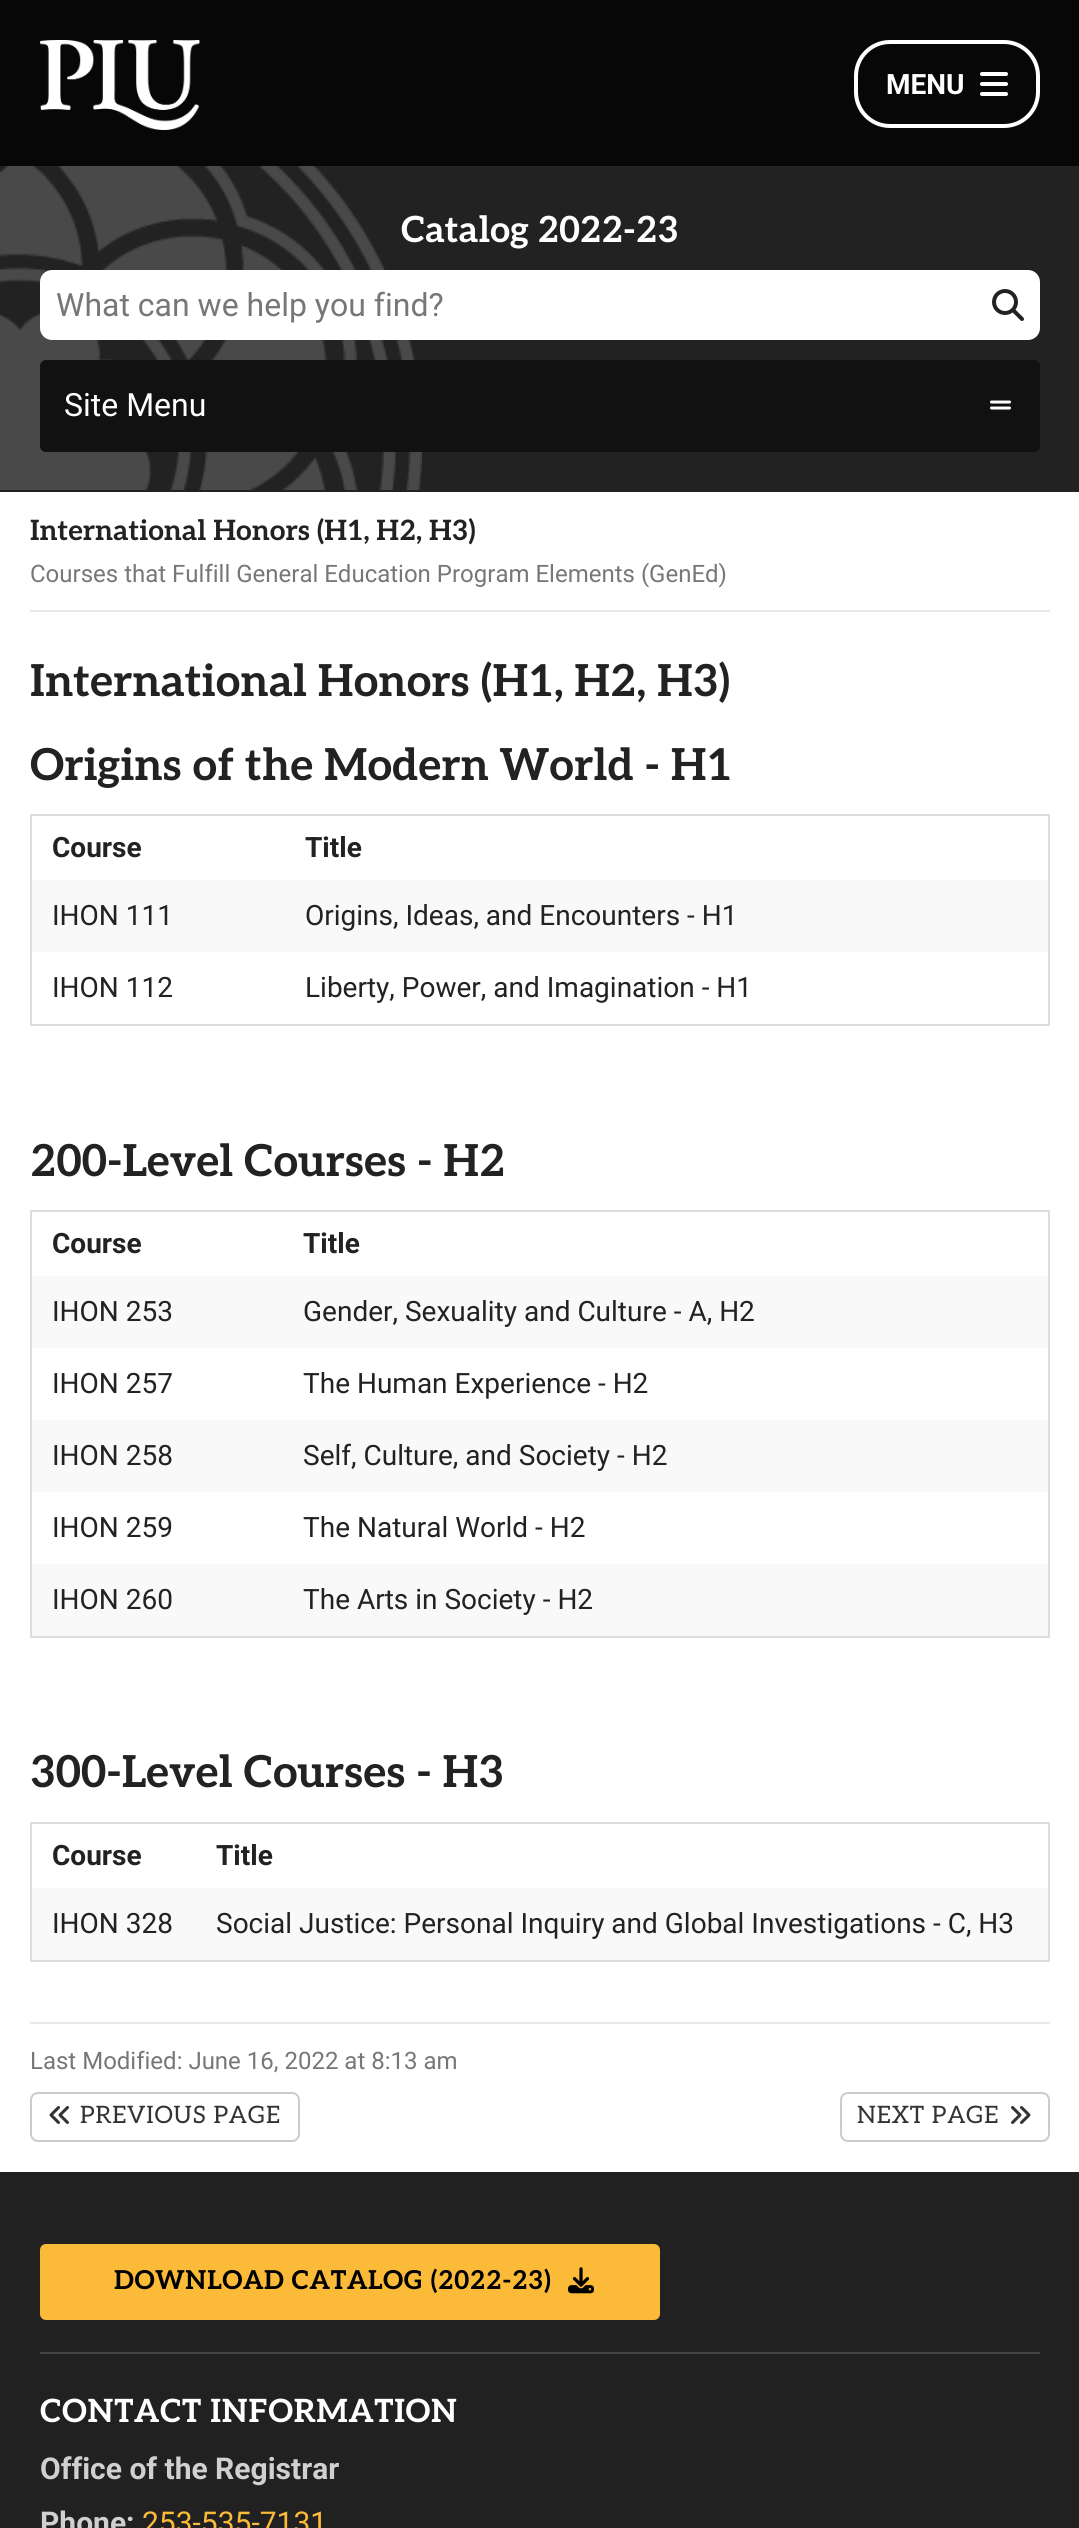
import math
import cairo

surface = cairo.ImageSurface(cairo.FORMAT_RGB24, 1079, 2528)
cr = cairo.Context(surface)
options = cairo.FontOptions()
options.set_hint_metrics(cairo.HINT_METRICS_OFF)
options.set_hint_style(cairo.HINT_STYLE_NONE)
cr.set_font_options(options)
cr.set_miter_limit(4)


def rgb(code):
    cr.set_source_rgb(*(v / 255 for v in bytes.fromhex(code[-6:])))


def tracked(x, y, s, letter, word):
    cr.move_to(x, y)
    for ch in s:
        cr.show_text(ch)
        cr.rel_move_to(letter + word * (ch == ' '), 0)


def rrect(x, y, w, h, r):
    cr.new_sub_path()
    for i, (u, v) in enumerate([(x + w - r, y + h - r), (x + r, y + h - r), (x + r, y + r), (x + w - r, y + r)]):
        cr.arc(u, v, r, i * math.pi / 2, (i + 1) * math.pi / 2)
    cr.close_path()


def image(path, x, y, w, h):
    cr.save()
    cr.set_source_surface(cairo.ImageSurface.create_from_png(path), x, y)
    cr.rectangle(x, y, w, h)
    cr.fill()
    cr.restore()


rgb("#ffffff")
cr.paint()
rgb("#070707")
cr.rectangle(0, 0, 1079, 166)
cr.fill()
image("img/1.png", 40, 40, 160, 90)
rrect(856, 42, 182, 84, 34)
rgb("#ffffff")
cr.set_line_width(4)
cr.stroke()
image("img/2.png", 980, 72, 28, 24)
rgb("#222222")
cr.rectangle(0, 166, 1079, 326)
cr.fill()
image("img/3.png", 0, 166, 422, 324)
rgb("#ffffff")
rrect(40, 270, 1000, 70, 12)
cr.fill()
image("img/4.png", 992, 289, 32, 32)
rgb("#111111")
rrect(40, 360, 1000, 92, 6)
cr.fill()
image("img/5.png", 990, 400, 21, 10)
for x, y, w, h, color in [
    (30, 610, 1020, 2, "#e8e8e8"),
    (30, 814, 1020, 2, "#dddddd"),
    (1048, 814, 2, 212, "#dddddd"),
    (30, 1024, 1020, 2, "#dddddd"),
    (30, 814, 2, 212, "#dddddd"),
    (32, 880, 1016, 72, "#f9f9f9"),
    (30, 1210, 1020, 2, "#dddddd"),
    (1048, 1210, 2, 428, "#dddddd"),
    (30, 1636, 1020, 2, "#dddddd"),
    (30, 1210, 2, 428, "#dddddd"),
    (32, 1276, 1016, 72, "#f9f9f9"),
    (32, 1420, 1016, 72, "#f9f9f9"),
    (32, 1564, 1016, 72, "#f9f9f9"),
    (30, 1822, 1020, 2, "#dddddd"),
    (1048, 1822, 2, 140, "#dddddd"),
    (30, 1960, 1020, 2, "#dddddd"),
    (30, 1822, 2, 140, "#dddddd"),
    (32, 1888, 1016, 72, "#f9f9f9"),
    (30, 2022, 1020, 2, "#e8e8e8"),
]:
    rgb(color)
    cr.rectangle(x, y, w, h)
    cr.fill()
rrect(31, 2093, 268, 48, 7)
rgb("#cccccc")
cr.set_line_width(2)
cr.stroke()
image("img/6.png", 49, 2106, 20, 18)
rrect(841, 2093, 208, 48, 7)
cr.stroke()
image("img/7.png", 1011, 2106, 20, 18)
rgb("#212121")
cr.rectangle(0, 2172, 1079, 356)
cr.fill()
rgb("#444444")
cr.rectangle(40, 2352, 1000, 2)
cr.fill()
rgb("#fbba37")
rrect(40, 2244, 620, 76, 6)
cr.fill()
image("img/8.png", 568, 2267, 26, 27)
cr.select_font_face("Roboto", cairo.FONT_SLANT_NORMAL, cairo.FONT_WEIGHT_BOLD)
cr.set_font_size(28)
rgb("#ffffff")
cr.move_to(886, 94)
cr.show_text("MENU")
cr.select_font_face("Aleo", cairo.FONT_SLANT_NORMAL, cairo.FONT_WEIGHT_BOLD)
cr.set_font_size(36)
cr.move_to(401, 242)
cr.show_text("Catalog 2022-23")
cr.select_font_face("Roboto")
cr.set_font_size(32)
rgb("#777777")
cr.move_to(56, 316)
cr.show_text("What can we help you find?")
rgb("#ffffff")
cr.move_to(64, 416)
cr.show_text("Site Menu")
cr.select_font_face("Aleo", cairo.FONT_SLANT_NORMAL, cairo.FONT_WEIGHT_BOLD)
cr.set_font_size(28)
rgb("#222222")
cr.move_to(30, 540)
cr.show_text("International Honors (H1, H2, H3)")
cr.select_font_face("Roboto")
cr.set_font_size(24)
rgb("#777777")
cr.move_to(30, 582)
cr.show_text("Courses that Fulfill General Education Program Elements (GenEd)")
cr.select_font_face("Aleo", cairo.FONT_SLANT_NORMAL, cairo.FONT_WEIGHT_BOLD)
cr.set_font_size(44)
rgb("#222222")
cr.move_to(30, 696)
cr.show_text("International Honors (H1, H2, H3)")
cr.move_to(30, 780)
cr.show_text("Origins of the Modern World - H1")
cr.select_font_face("Roboto", cairo.FONT_SLANT_NORMAL, cairo.FONT_WEIGHT_BOLD)
cr.set_font_size(28)
cr.move_to(52, 857)
cr.show_text("Course")
cr.move_to(305, 857)
cr.show_text("Title")
cr.select_font_face("Roboto")
for x, y, s in [
    (52, 925, "IHON 111"),
    (305, 925, "Origins, Ideas, and Encounters - H1"),
    (52, 997, "IHON 112"),
    (305, 997, "Liberty, Power, and Imagination - H1"),
]:
    cr.move_to(x, y)
    cr.show_text(s)
cr.select_font_face("Aleo", cairo.FONT_SLANT_NORMAL, cairo.FONT_WEIGHT_BOLD)
cr.set_font_size(44)
cr.move_to(30, 1176)
cr.show_text("200-Level Courses - H2")
cr.select_font_face("Roboto", cairo.FONT_SLANT_NORMAL, cairo.FONT_WEIGHT_BOLD)
cr.set_font_size(28)
cr.move_to(52, 1253)
cr.show_text("Course")
cr.move_to(303, 1253)
cr.show_text("Title")
cr.select_font_face("Roboto")
for x, y, s in [
    (52, 1321, "IHON 253"),
    (303, 1321, "Gender, Sexuality and Culture - A, H2"),
    (52, 1393, "IHON 257"),
    (303, 1393, "The Human Experience - H2"),
    (52, 1465, "IHON 258"),
    (303, 1465, "Self, Culture, and Society - H2"),
    (52, 1537, "IHON 259"),
    (303, 1537, "The Natural World - H2"),
    (52, 1609, "IHON 260"),
    (303, 1609, "The Arts in Society - H2"),
]:
    cr.move_to(x, y)
    cr.show_text(s)
cr.select_font_face("Aleo", cairo.FONT_SLANT_NORMAL, cairo.FONT_WEIGHT_BOLD)
cr.set_font_size(44)
cr.move_to(30, 1787)
cr.show_text("300-Level Courses - H3")
cr.select_font_face("Roboto", cairo.FONT_SLANT_NORMAL, cairo.FONT_WEIGHT_BOLD)
cr.set_font_size(28)
cr.move_to(52, 1865)
cr.show_text("Course")
cr.move_to(216, 1865)
cr.show_text("Title")
cr.select_font_face("Roboto")
cr.move_to(52, 1933)
cr.show_text("IHON 328")
cr.move_to(216, 1933)
cr.show_text("Social Justice: Personal Inquiry and Global Investigations - C, H3")
cr.set_font_size(24)
rgb("#777777")
cr.move_to(30, 2069)
cr.show_text("Last Modified: June 16, 2022 at 8:13 am")
cr.select_font_face("Aleo")
rgb("#333333")
tracked(80, 2123, "PREVIOUS PAGE", 0.75, 0)
tracked(857, 2123, "NEXT PAGE", 0.75, 0)
cr.select_font_face("Aleo", cairo.FONT_SLANT_NORMAL, cairo.FONT_WEIGHT_BOLD)
cr.set_font_size(26)
rgb("#000000")
tracked(114, 2289, "DOWNLOAD CATALOG (2022-23)", 0.6, 0)
cr.set_font_size(32)
rgb("#ffffff")
tracked(40, 2422, "CONTACT INFORMATION", 0.6, 0)
cr.select_font_face("Roboto", cairo.FONT_SLANT_NORMAL, cairo.FONT_WEIGHT_BOLD)
cr.set_font_size(30)
rgb("#d0d0cf")
cr.move_to(40, 2479)
cr.show_text("Office of the Registrar")
cr.move_to(40, 2533)
cr.show_text("Phone:")
cr.select_font_face("Roboto")
rgb("#fbba37")
cr.move_to(142, 2533)
cr.show_text("253-535-7131")
surface.write_to_png("page.png")
